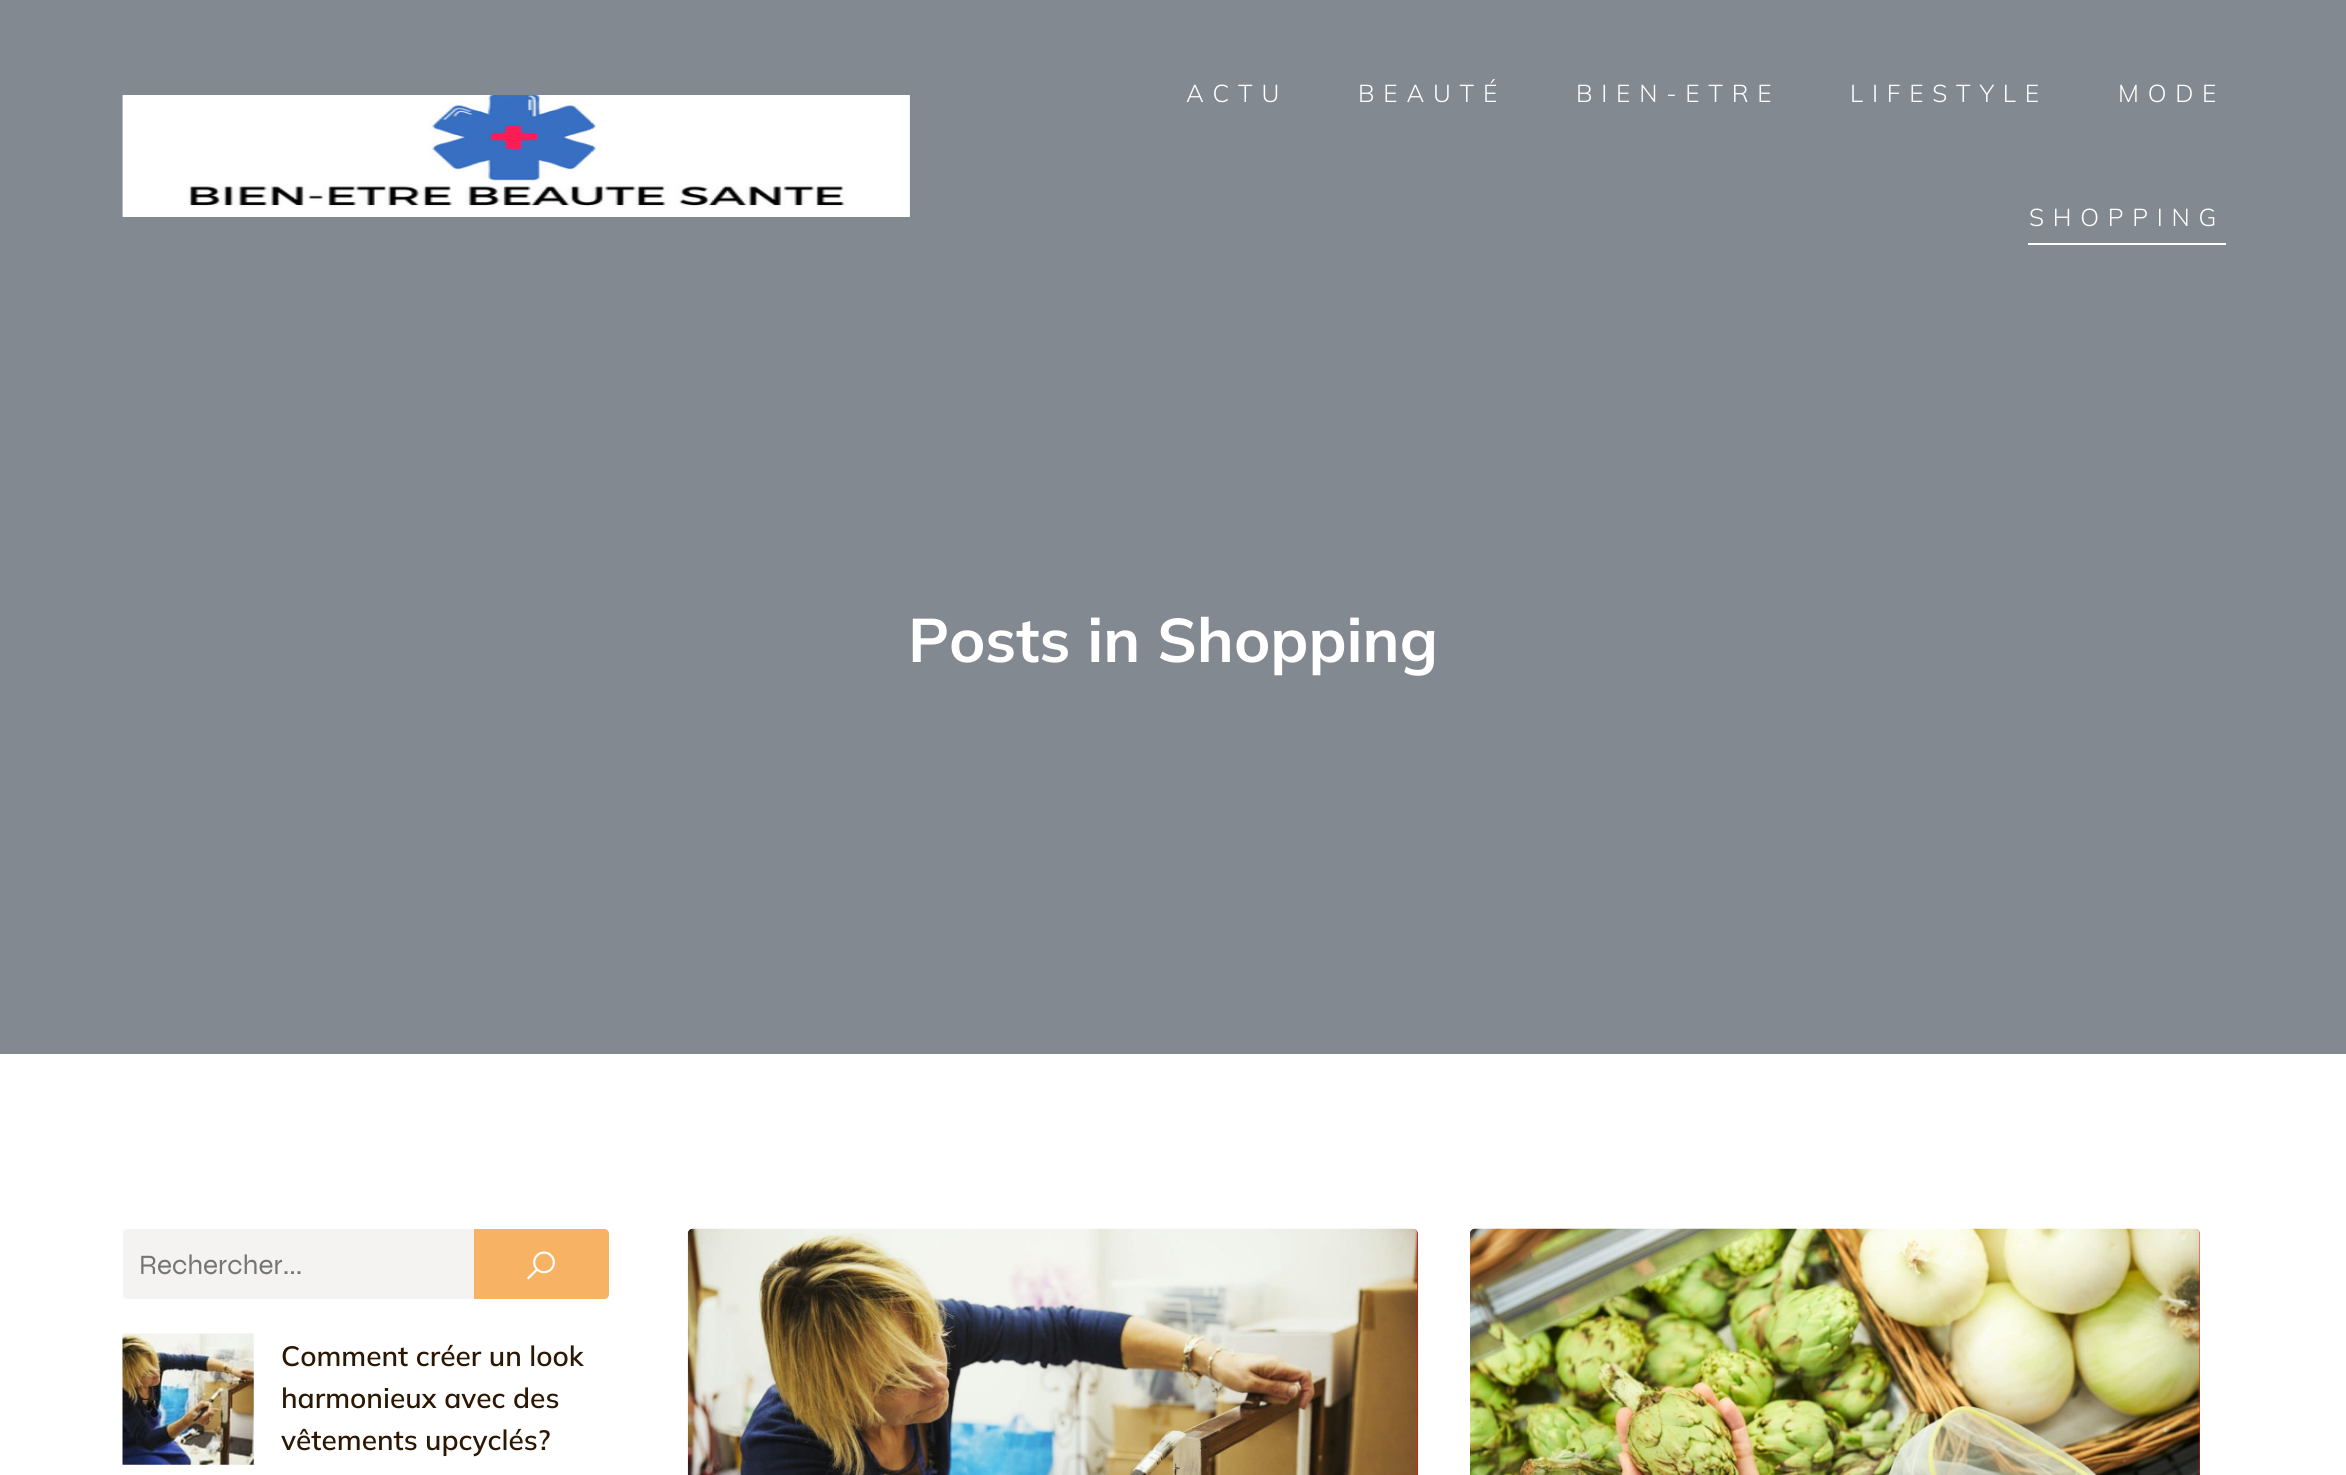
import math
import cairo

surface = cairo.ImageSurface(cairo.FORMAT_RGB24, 2346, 1475)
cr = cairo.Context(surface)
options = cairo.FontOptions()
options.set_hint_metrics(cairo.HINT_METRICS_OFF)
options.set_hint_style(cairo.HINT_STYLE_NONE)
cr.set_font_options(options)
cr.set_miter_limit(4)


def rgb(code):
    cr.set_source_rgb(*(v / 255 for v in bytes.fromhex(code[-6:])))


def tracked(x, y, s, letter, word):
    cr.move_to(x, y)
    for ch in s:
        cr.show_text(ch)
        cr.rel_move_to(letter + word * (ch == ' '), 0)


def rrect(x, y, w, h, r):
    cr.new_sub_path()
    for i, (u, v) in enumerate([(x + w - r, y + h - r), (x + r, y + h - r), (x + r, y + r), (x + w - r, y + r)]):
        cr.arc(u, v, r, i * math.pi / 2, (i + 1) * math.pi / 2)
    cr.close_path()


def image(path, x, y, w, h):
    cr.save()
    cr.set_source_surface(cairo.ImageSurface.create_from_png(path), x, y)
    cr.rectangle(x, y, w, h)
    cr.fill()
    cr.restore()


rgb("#ffffff")
cr.paint()
rgb("#838991")
cr.rectangle(0, 0, 2346, 1054)
cr.fill()
image("img/1.png", 122, 95, 788, 122)
rgb("#ffffff")
cr.rectangle(2028, 243, 198, 2)
cr.fill()
rgb("#f4f3f2")
cr.new_path()
cr.move_to(128, 1229)
cr.line_to(474, 1229)
cr.line_to(474, 1299)
cr.line_to(128, 1299)
cr.curve_to(125, 1299, 123, 1297, 123, 1294)
cr.line_to(123, 1234)
cr.curve_to(123, 1231, 125, 1229, 128, 1229)
cr.close_path()
cr.fill()
rgb("#f8b263")
cr.new_path()
cr.move_to(474, 1229)
cr.line_to(604, 1229)
cr.curve_to(607, 1229, 609, 1231, 609, 1234)
cr.line_to(609, 1294)
cr.curve_to(609, 1297, 607, 1299, 604, 1299)
cr.line_to(474, 1299)
cr.close_path()
cr.fill()
image("img/2.png", 527, 1251, 28, 29)
image("img/3.png", 122, 1333, 132, 132)
rgb("#ed0c0c")
rrect(688, 1229, 730, 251, 5)
cr.fill()
image("img/4.png", 687, 1228, 731, 247)
rrect(1470, 1229, 730, 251, 5)
cr.fill()
image("img/5.png", 1470, 1228, 730, 247)
cr.select_font_face("Mulish Light")
cr.set_font_size(24.5)
rgb("#ffffff")
for x, y, s in [
    (1186, 102, "ACTU"),
    (1358, 102, "BEAUTÉ"),
    (1576, 102, "BIEN-ETRE"),
    (1850, 102, "LIFESTYLE"),
    (2118, 102, "MODE"),
    (2029, 226, "SHOPPING"),
]:
    tracked(x, y, s, 8.75, 0)
cr.select_font_face("Mulish", cairo.FONT_SLANT_NORMAL, cairo.FONT_WEIGHT_BOLD)
cr.set_font_size(61.5)
cr.move_to(908, 662)
cr.show_text("Posts in Shopping")
cr.select_font_face("Syne")
cr.set_font_size(28)
rgb("#757575")
cr.move_to(139, 1274)
cr.show_text("Rechercher...")
cr.select_font_face("Mulish SemiBold")
rgb("#2c1802")
for x, y, s in [
    (281, 1366, "Comment créer un look"),
    (281, 1408, "harmonieux avec des"),
    (281, 1450, "vêtements upcyclés?"),
]:
    cr.move_to(x, y)
    cr.show_text(s)
surface.write_to_png("page.png")
